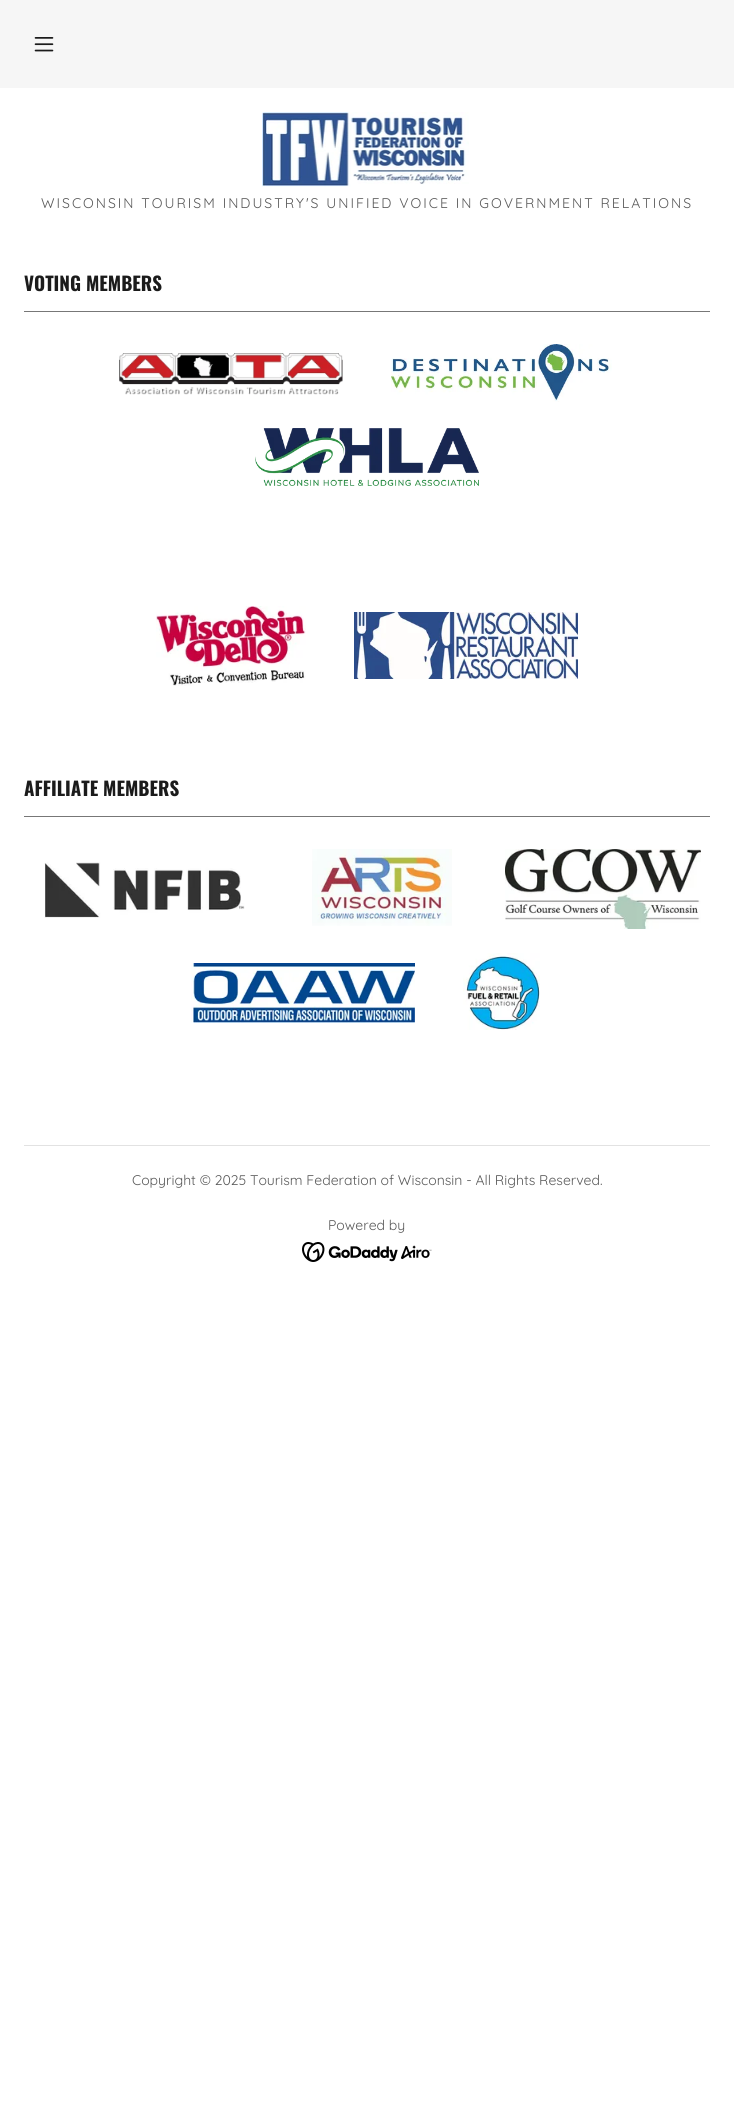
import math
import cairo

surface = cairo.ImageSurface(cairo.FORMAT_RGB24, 734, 2105)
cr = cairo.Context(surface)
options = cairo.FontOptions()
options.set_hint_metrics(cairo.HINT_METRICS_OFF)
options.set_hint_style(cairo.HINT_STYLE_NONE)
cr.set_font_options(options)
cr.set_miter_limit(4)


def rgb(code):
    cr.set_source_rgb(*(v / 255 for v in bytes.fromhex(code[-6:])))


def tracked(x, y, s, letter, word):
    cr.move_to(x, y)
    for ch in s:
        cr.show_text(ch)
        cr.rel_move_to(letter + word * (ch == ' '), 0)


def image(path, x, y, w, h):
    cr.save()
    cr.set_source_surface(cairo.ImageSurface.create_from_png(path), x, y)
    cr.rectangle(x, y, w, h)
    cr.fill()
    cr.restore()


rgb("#ffffff")
cr.paint()
rgb("#f6f6f6")
cr.rectangle(0, 0, 734, 88)
cr.fill()
image("img/1.png", 34, 37, 20, 15)
image("img/2.png", 262, 112, 207, 75)
rgb("#777777")
cr.rectangle(24, 311, 686, 1)
cr.fill()
image("img/3.png", 119, 353, 224, 42)
image("img/4.png", 391, 344, 221, 58)
image("img/5.png", 255, 428, 224, 58)
image("img/6.png", 156, 606, 150, 80)
image("img/7.png", 354, 612, 224, 67)
cr.rectangle(24, 816, 686, 1)
cr.fill()
image("img/8.png", 44, 862, 201, 56)
image("img/9.png", 312, 849, 140, 77)
image("img/10.png", 505, 849, 196, 80)
image("img/11.png", 191, 963, 224, 60)
image("img/12.png", 463, 953, 77, 77)
rgb("#e2e2e2")
cr.rectangle(24, 1145, 686, 1)
cr.fill()
image("img/13.png", 302, 1242, 130, 20)
cr.select_font_face("Quicksand")
cr.set_font_size(14)
rgb("#595959")
tracked(41, 208, "WISCONSIN TOURISM INDUSTRY'S UNIFIED VOICE IN GOVERNMENT RELATIONS", 2, 0)
cr.select_font_face("Oswald", cairo.FONT_SLANT_NORMAL, cairo.FONT_WEIGHT_BOLD)
cr.set_font_size(19)
rgb("#1b1b1b")
cr.move_to(24, 291)
cr.show_text("VOTING MEMBERS")
cr.move_to(24, 796)
cr.show_text("AFFILIATE MEMBERS")
cr.select_font_face("Quicksand")
cr.set_font_size(14)
rgb("#595959")
cr.move_to(132, 1185)
cr.show_text("Copyright © 2025 Tourism Federation of Wisconsin - All Rights Reserved.")
cr.move_to(328, 1230)
cr.show_text("Powered by")
surface.write_to_png("page.png")
